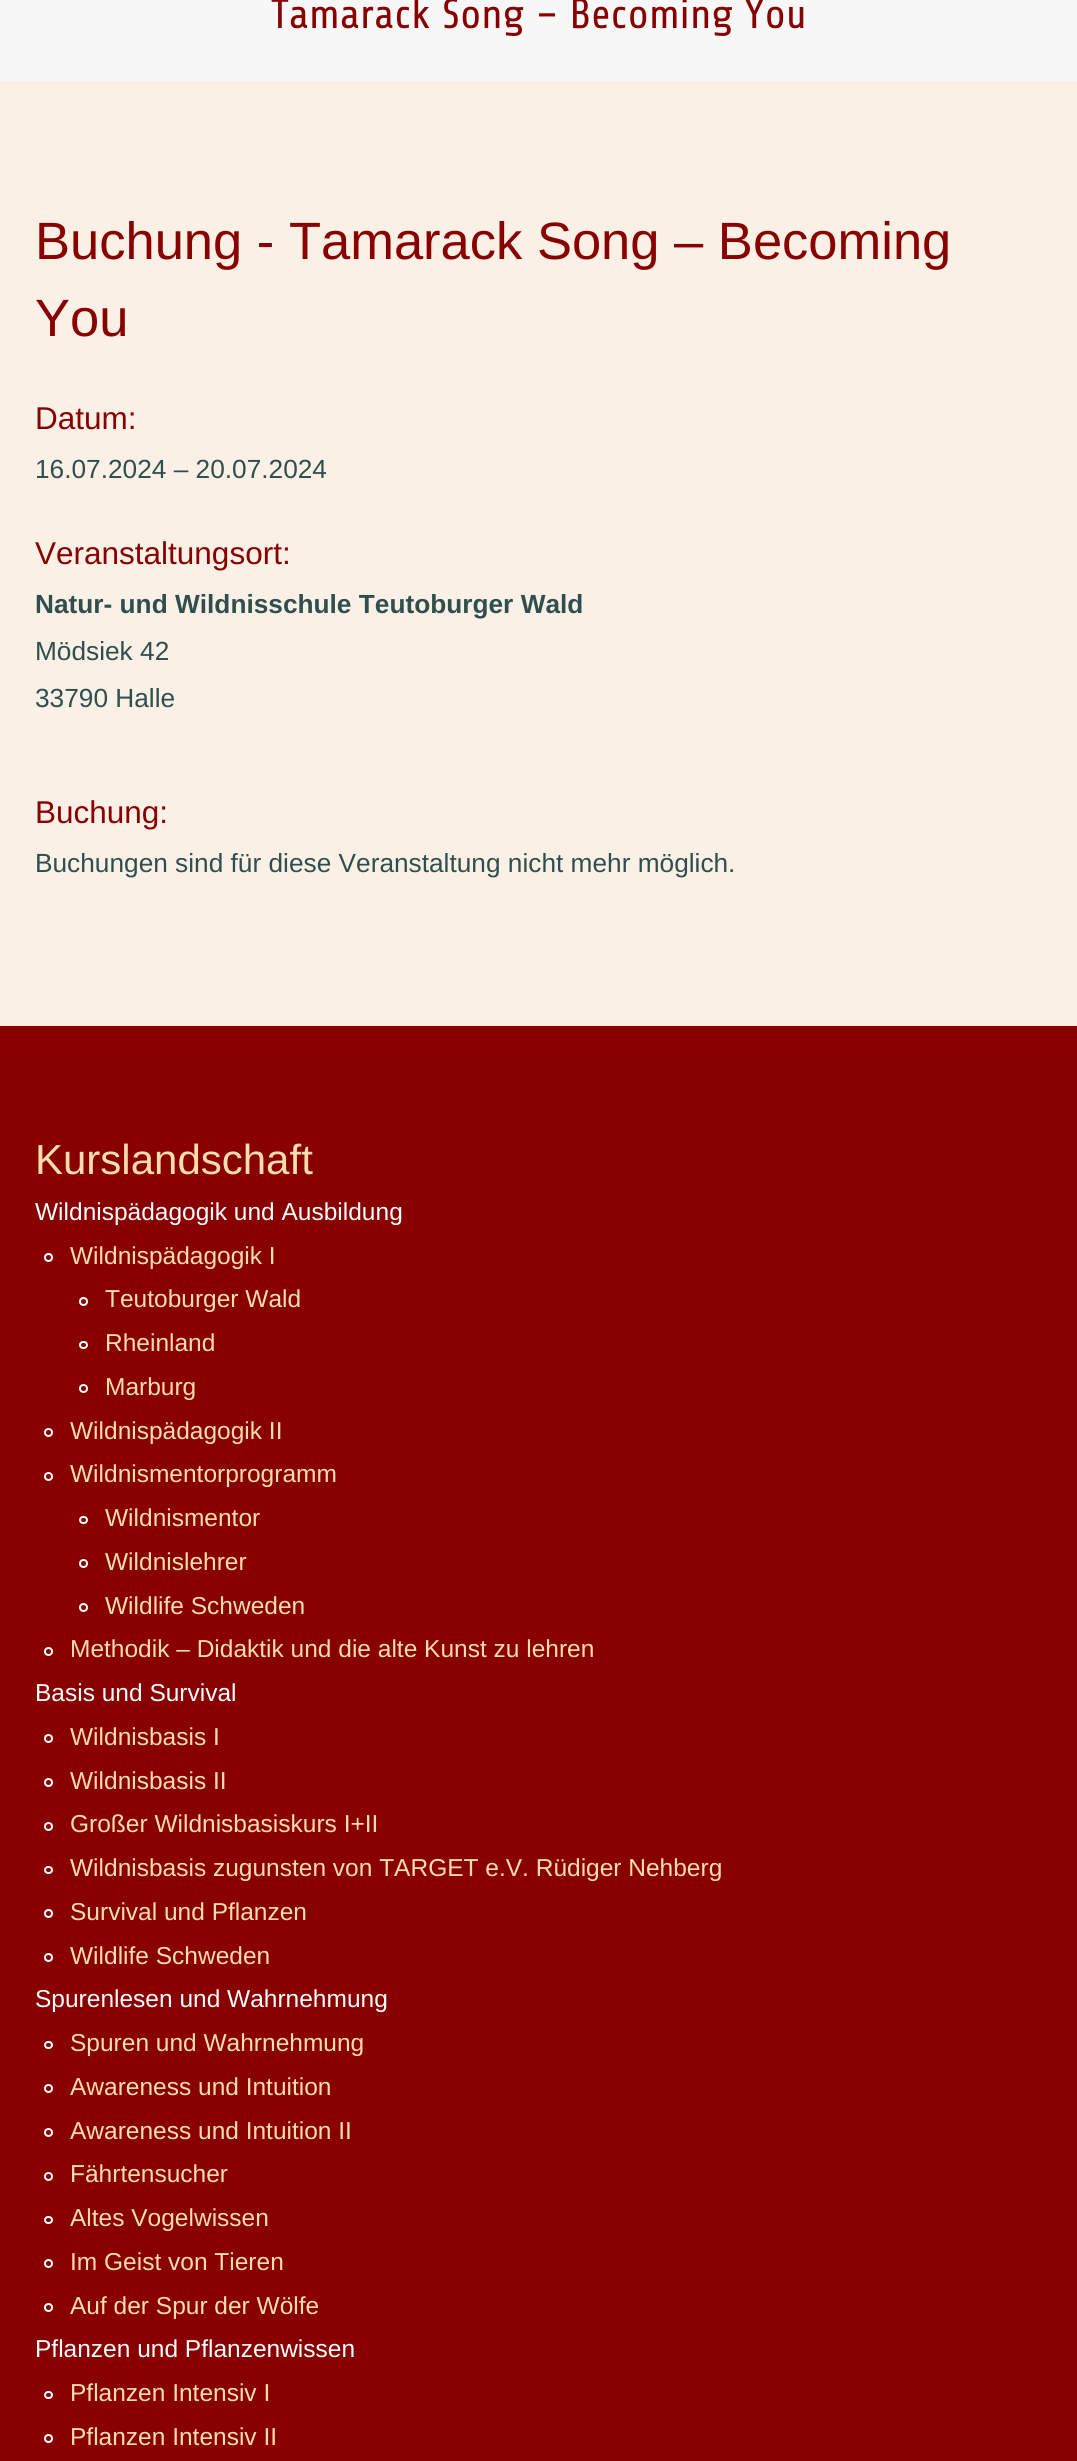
import math
import cairo

surface = cairo.ImageSurface(cairo.FORMAT_RGB24, 1077, 2461)
cr = cairo.Context(surface)
options = cairo.FontOptions()
options.set_hint_metrics(cairo.HINT_METRICS_OFF)
options.set_hint_style(cairo.HINT_STYLE_NONE)
cr.set_font_options(options)
cr.set_miter_limit(4)


def rgb(code):
    cr.set_source_rgb(*(v / 255 for v in bytes.fromhex(code[-6:])))


def rrect(x, y, w, h, r):
    cr.new_sub_path()
    for i, (u, v) in enumerate([(x + w - r, y + h - r), (x + r, y + h - r), (x + r, y + r), (x + w - r, y + r)]):
        cr.arc(u, v, r, i * math.pi / 2, (i + 1) * math.pi / 2)
    cr.close_path()


rgb("#faf0e6")
cr.paint()
rgb("#f7f7f7")
cr.rectangle(0, 0, 1077, 81)
cr.fill()
rgb("#880000")
cr.rectangle(0, 1026, 1077, 1435)
cr.fill()
cr.arc(48.5, 1257.5, 3.5, 0, 2 * math.pi)
rgb("#ffffff")
cr.stroke()
cr.arc(83.5, 1301.5, 3.5, 0, 2 * math.pi)
cr.stroke()
rrect(80, 1342, 7, 6, 3)
cr.stroke()
cr.arc(83.5, 1388.5, 3.5, 0, 2 * math.pi)
cr.stroke()
cr.arc(48.5, 1432.5, 3.5, 0, 2 * math.pi)
cr.stroke()
cr.arc(48.5, 1476.5, 3.5, 0, 2 * math.pi)
cr.stroke()
rrect(80, 1517, 7, 6, 3)
cr.stroke()
cr.arc(83.5, 1563.5, 3.5, 0, 2 * math.pi)
cr.stroke()
cr.arc(83.5, 1607.5, 3.5, 0, 2 * math.pi)
cr.stroke()
cr.arc(48.5, 1651.5, 3.5, 0, 2 * math.pi)
cr.stroke()
cr.arc(48.5, 1738.5, 3.5, 0, 2 * math.pi)
cr.stroke()
cr.arc(48.5, 1782.5, 3.5, 0, 2 * math.pi)
cr.stroke()
cr.arc(48.5, 1826.5, 3.5, 0, 2 * math.pi)
cr.stroke()
rrect(45, 1867, 7, 6, 3)
cr.stroke()
cr.arc(48.5, 1913.5, 3.5, 0, 2 * math.pi)
cr.stroke()
cr.arc(48.5, 1957.5, 3.5, 0, 2 * math.pi)
cr.stroke()
rrect(45, 2042, 7, 6, 3)
cr.stroke()
cr.arc(48.5, 2088.5, 3.5, 0, 2 * math.pi)
cr.stroke()
cr.arc(48.5, 2132.5, 3.5, 0, 2 * math.pi)
cr.stroke()
cr.arc(48.5, 2176.5, 3.5, 0, 2 * math.pi)
cr.stroke()
rrect(45, 2217, 7, 6, 3)
cr.stroke()
cr.arc(48.5, 2263.5, 3.5, 0, 2 * math.pi)
cr.stroke()
cr.arc(48.5, 2307.5, 3.5, 0, 2 * math.pi)
cr.stroke()
rrect(45, 2392, 7, 6, 3)
cr.stroke()
cr.arc(48.5, 2438.5, 3.5, 0, 2 * math.pi)
cr.stroke()
cr.select_font_face("Share")
cr.set_font_size(42)
rgb("#880000")
cr.move_to(271, 28)
cr.show_text("Tamarack Song – Becoming You")
cr.select_font_face("Liberation Sans")
cr.set_font_size(52.5)
cr.move_to(35, 259)
cr.show_text("Buchung - Tamarack Song – Becoming")
cr.move_to(35, 336)
cr.show_text("You")
cr.set_font_size(31.5)
cr.move_to(35, 429)
cr.show_text("Datum:")
cr.set_font_size(26.25)
rgb("#2f4f4f")
cr.move_to(35, 478)
cr.show_text("16.07.2024 – 20.07.2024")
cr.set_font_size(31.5)
rgb("#880000")
cr.move_to(35, 564)
cr.show_text("Veranstaltungsort:")
cr.select_font_face("Liberation Sans", cairo.FONT_SLANT_NORMAL, cairo.FONT_WEIGHT_BOLD)
cr.set_font_size(26.25)
rgb("#2f4f4f")
cr.move_to(35, 613)
cr.show_text("Natur- und Wildnisschule Teutoburger Wald")
cr.select_font_face("Liberation Sans")
cr.move_to(35, 660)
cr.show_text("Mödsiek 42")
cr.move_to(35, 707)
cr.show_text("33790 Halle")
cr.set_font_size(31.5)
rgb("#880000")
cr.move_to(35, 823)
cr.show_text("Buchung:")
cr.set_font_size(26.25)
rgb("#2f4f4f")
cr.move_to(35, 872)
cr.show_text("Buchungen sind für diese Veranstaltung nicht mehr möglich.")
cr.set_font_size(42)
rgb("#ffdead")
cr.move_to(35, 1174)
cr.show_text("Kurslandschaft")
cr.set_font_size(24.5)
rgb("#ffffff")
cr.move_to(35, 1220)
cr.show_text("Wildnispädagogik und Ausbildung")
rgb("#ffdead")
for x, y, s in [
    (70, 1264, "Wildnispädagogik I"),
    (105, 1307, "Teutoburger Wald"),
    (105, 1351, "Rheinland"),
    (105, 1395, "Marburg"),
    (70, 1439, "Wildnispädagogik II"),
    (70, 1482, "Wildnismentorprogramm"),
    (105, 1526, "Wildnismentor"),
    (105, 1570, "Wildnislehrer"),
    (105, 1614, "Wildlife Schweden"),
    (70, 1657, "Methodik – Didaktik und die alte Kunst zu lehren"),
]:
    cr.move_to(x, y)
    cr.show_text(s)
rgb("#ffffff")
cr.move_to(35, 1701)
cr.show_text("Basis und Survival")
rgb("#ffdead")
for x, y, s in [
    (70, 1745, "Wildnisbasis I"),
    (70, 1789, "Wildnisbasis II"),
    (70, 1832, "Großer Wildnisbasiskurs I+II"),
    (70, 1876, "Wildnisbasis zugunsten von TARGET e.V. Rüdiger Nehberg"),
    (70, 1920, "Survival und Pflanzen"),
    (70, 1964, "Wildlife Schweden"),
]:
    cr.move_to(x, y)
    cr.show_text(s)
rgb("#ffffff")
cr.move_to(35, 2007)
cr.show_text("Spurenlesen und Wahrnehmung")
rgb("#ffdead")
for x, y, s in [
    (70, 2051, "Spuren und Wahrnehmung"),
    (70, 2095, "Awareness und Intuition"),
    (70, 2139, "Awareness und Intuition II"),
    (70, 2182, "Fährtensucher"),
    (70, 2226, "Altes Vogelwissen"),
    (70, 2270, "Im Geist von Tieren"),
    (70, 2314, "Auf der Spur der Wölfe"),
]:
    cr.move_to(x, y)
    cr.show_text(s)
rgb("#ffffff")
cr.move_to(35, 2357)
cr.show_text("Pflanzen und Pflanzenwissen")
rgb("#ffdead")
cr.move_to(70, 2401)
cr.show_text("Pflanzen Intensiv I")
cr.move_to(70, 2445)
cr.show_text("Pflanzen Intensiv II")
surface.write_to_png("page.png")
